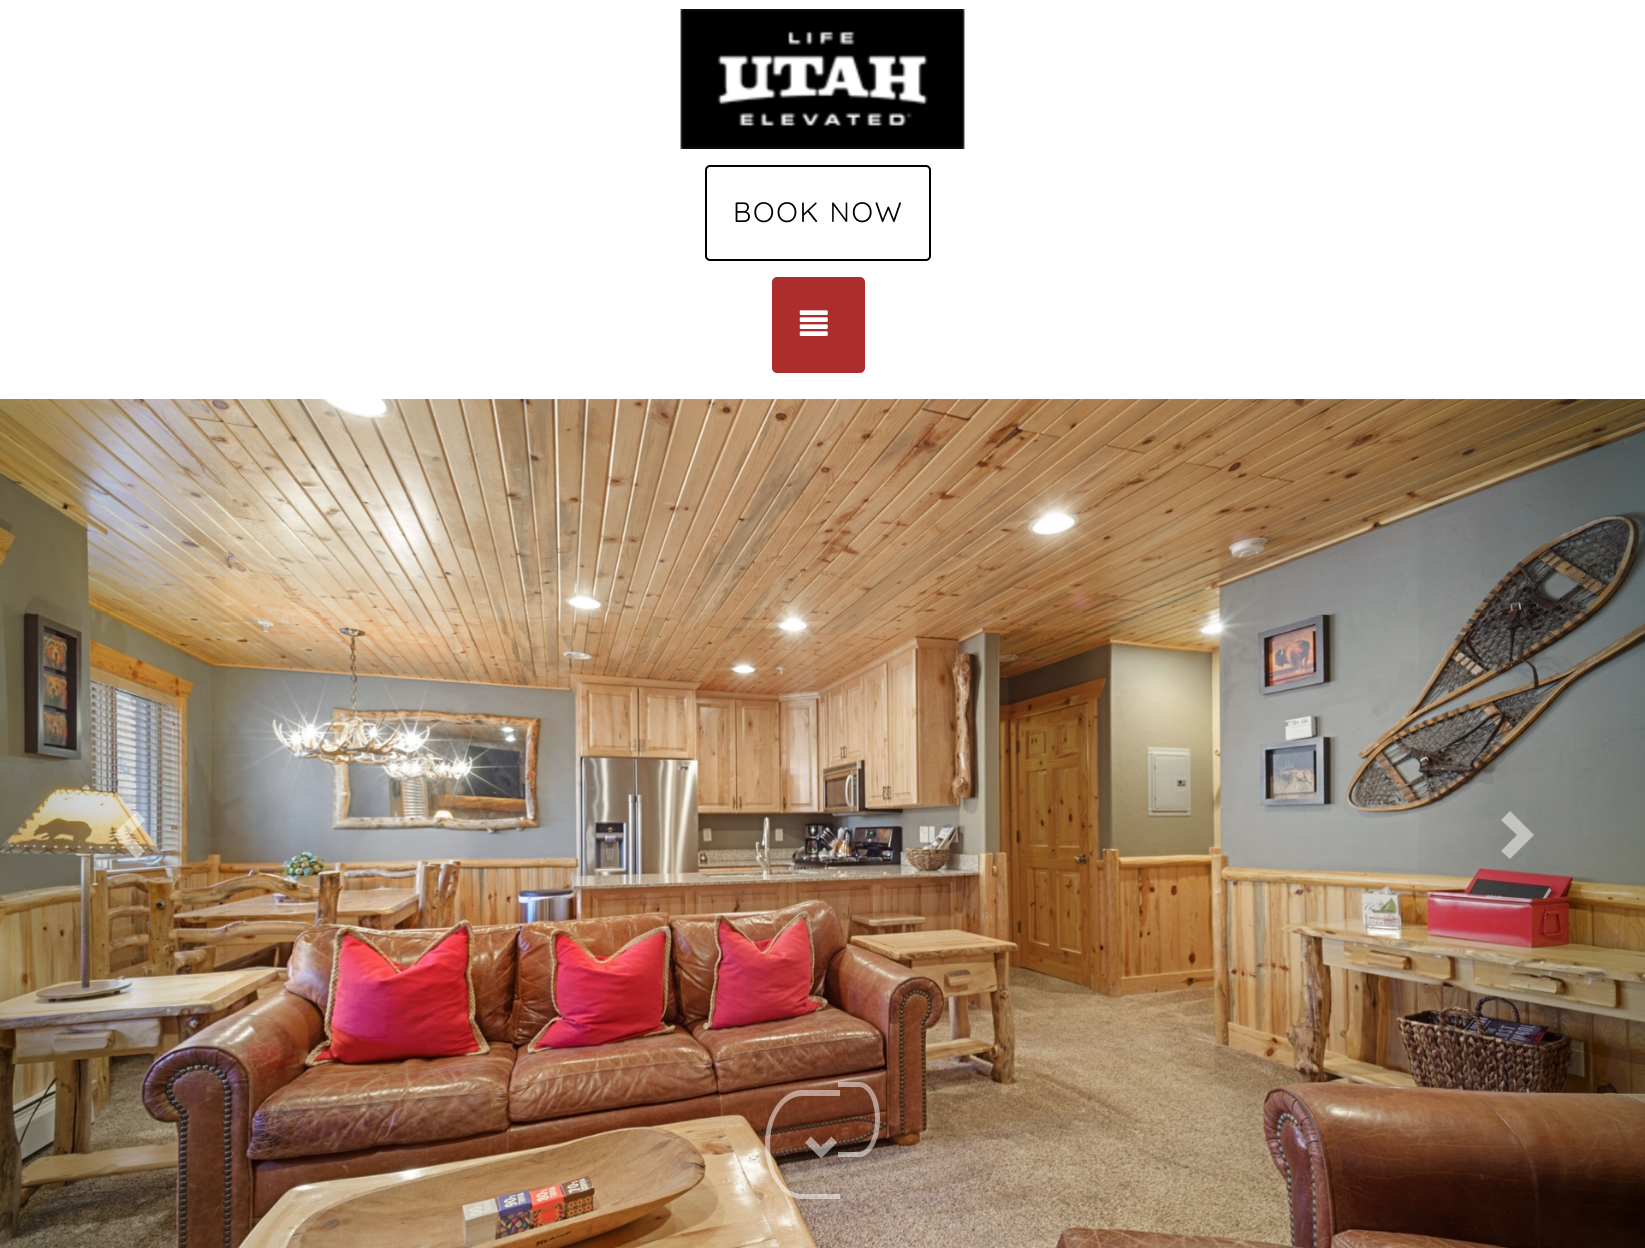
import math
import cairo

surface = cairo.ImageSurface(cairo.FORMAT_RGB24, 1645, 1248)
cr = cairo.Context(surface)
options = cairo.FontOptions()
options.set_hint_metrics(cairo.HINT_METRICS_OFF)
options.set_hint_style(cairo.HINT_STYLE_NONE)
cr.set_font_options(options)
cr.set_miter_limit(4)


def rgb(code):
    cr.set_source_rgb(*(v / 255 for v in bytes.fromhex(code[-6:])))


def tracked(x, y, s, letter, word):
    cr.move_to(x, y)
    for ch in s:
        cr.show_text(ch)
        cr.rel_move_to(letter + word * (ch == ' '), 0)


def rrect(x, y, w, h, r):
    cr.new_sub_path()
    for i, (u, v) in enumerate([(x + w - r, y + h - r), (x + r, y + h - r), (x + r, y + r), (x + w - r, y + r)]):
        cr.arc(u, v, r, i * math.pi / 2, (i + 1) * math.pi / 2)
    cr.close_path()


def image(path, x, y, w, h):
    cr.save()
    cr.set_source_surface(cairo.ImageSurface.create_from_png(path), x, y)
    cr.rectangle(x, y, w, h)
    cr.fill()
    cr.restore()


rgb("#ffffff")
cr.paint()
image("img/1.png", 680, 9, 285, 140)
rrect(706, 166, 224, 94, 4)
rgb("#000000")
cr.stroke()
rgb("#ad2d2d")
rrect(773, 278, 91, 94, 4)
cr.fill_preserve()
cr.stroke()
image("img/2.png", 799, 310, 29, 26)
image("img/3.png", 0, 399, 1645, 849)
gradient = cairo.LinearGradient(0, 824, 247, 824)
gradient.add_color_stop_rgba(0, 0, 0, 0, 0.25)
gradient.add_color_stop_rgba(1, 0, 0, 0, 0)
cr.set_source(gradient)
cr.rectangle(0, 399, 226, 849)
cr.fill()
cr.set_source_rgba(1, 1, 1, 0.5)
cr.new_path()
cr.move_to(145, 820)
cr.line_to(130, 835)
cr.line_to(145, 851)
cr.line_to(137, 859)
cr.line_to(113, 835)
cr.line_to(137, 811)
cr.close_path()
cr.fill()
cr.set_fill_rule(cairo.FILL_RULE_EVEN_ODD)
cr.new_path()
cr.move_to(802, 1090)
cr.line_to(840, 1090)
cr.line_to(840, 1199)
cr.line_to(802, 1199)
cr.curve_to(782, 1199, 765, 1174, 765, 1144)
cr.curve_to(765, 1115, 782, 1090, 802, 1090)
cr.close_path()
cr.move_to(802, 1096)
cr.line_to(840, 1096)
cr.line_to(840, 1194)
cr.line_to(802, 1194)
cr.curve_to(784, 1194, 770, 1172, 770, 1144)
cr.curve_to(770, 1117, 784, 1096, 802, 1096)
cr.close_path()
cr.fill()
cr.new_path()
cr.move_to(838, 1082)
cr.line_to(859, 1082)
cr.curve_to(871, 1082, 880, 1098, 880, 1119)
cr.curve_to(880, 1140, 871, 1157, 859, 1157)
cr.line_to(838, 1157)
cr.close_path()
cr.move_to(838, 1087)
cr.line_to(859, 1087)
cr.curve_to(868, 1087, 875, 1101, 875, 1119)
cr.curve_to(875, 1137, 868, 1152, 859, 1152)
cr.line_to(838, 1152)
cr.close_path()
cr.fill()
cr.set_fill_rule(cairo.FILL_RULE_WINDING)
cr.new_path()
cr.move_to(837, 1142.5)
cr.line_to(821, 1158.5)
cr.line_to(805, 1142.5)
cr.line_to(811, 1136.5)
cr.line_to(821, 1147)
cr.line_to(831.5, 1136.5)
cr.close_path()
cr.fill()
gradient = cairo.LinearGradient(1398, 824, 1645, 824)
gradient.add_color_stop_rgba(0, 0, 0, 0, 0)
gradient.add_color_stop_rgba(1, 0, 0, 0, 0.25)
cr.set_source(gradient)
cr.rectangle(1419, 399, 226, 849)
cr.fill()
cr.set_source_rgba(1, 1, 1, 0.5)
cr.new_path()
cr.move_to(1534, 835)
cr.line_to(1510, 859)
cr.line_to(1501, 851)
cr.line_to(1517, 835)
cr.line_to(1501, 820)
cr.line_to(1510, 811)
cr.close_path()
cr.fill()
cr.select_font_face("Quicksand")
cr.set_font_size(28)
rgb("#000000")
tracked(733, 222, "BOOK NOW", 1.75, 0)
surface.write_to_png("page.png")
